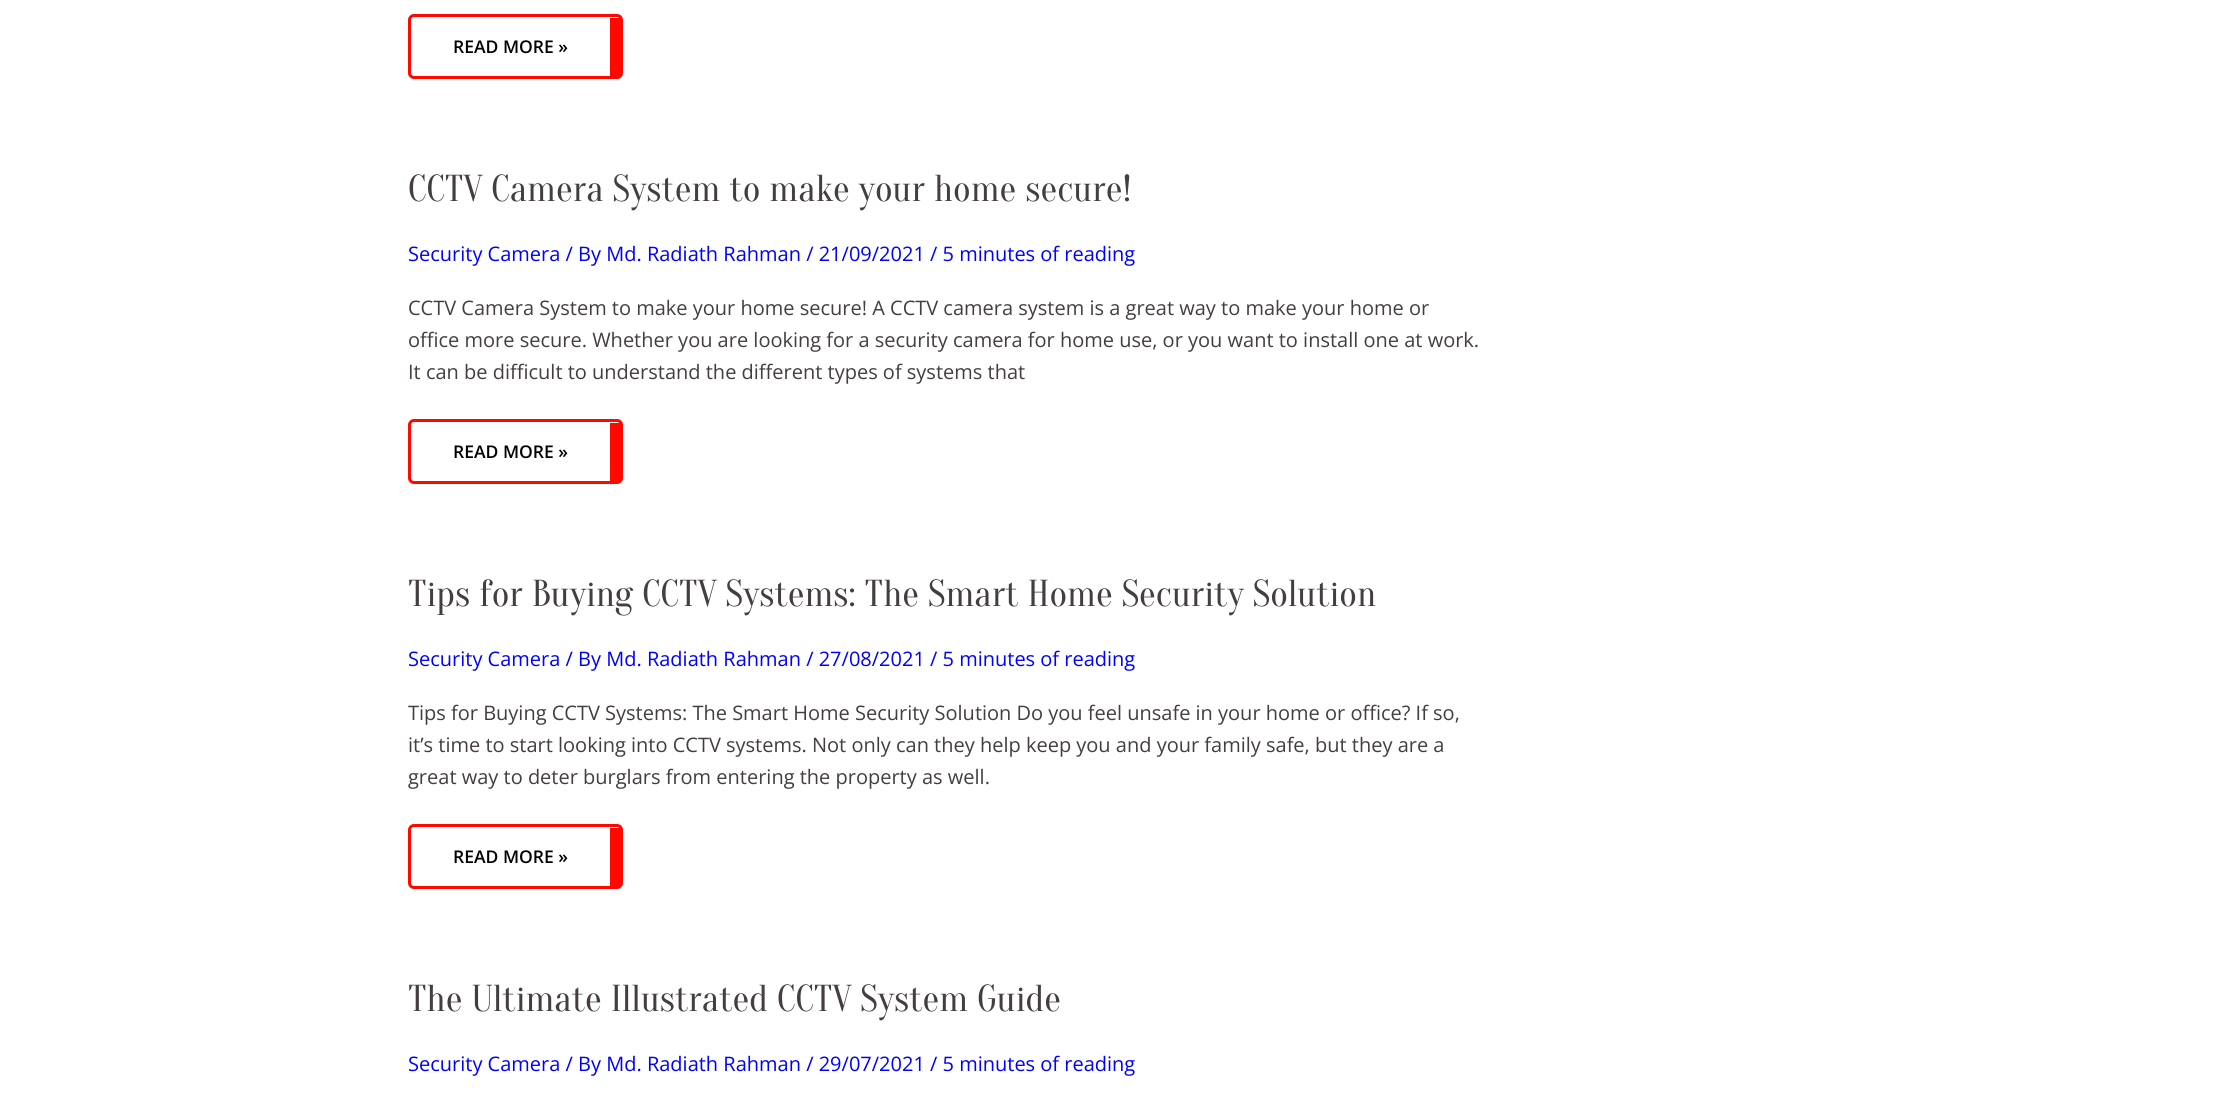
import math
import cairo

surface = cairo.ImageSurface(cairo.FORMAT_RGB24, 2239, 1094)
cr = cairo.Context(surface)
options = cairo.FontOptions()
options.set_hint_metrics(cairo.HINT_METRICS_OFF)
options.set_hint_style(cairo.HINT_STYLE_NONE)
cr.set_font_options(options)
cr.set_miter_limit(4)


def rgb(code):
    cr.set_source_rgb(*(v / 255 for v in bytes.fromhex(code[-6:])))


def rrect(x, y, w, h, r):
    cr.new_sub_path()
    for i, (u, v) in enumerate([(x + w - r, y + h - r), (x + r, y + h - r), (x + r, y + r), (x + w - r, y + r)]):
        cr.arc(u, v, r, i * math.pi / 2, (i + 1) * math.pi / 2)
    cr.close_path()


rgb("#ffffff")
cr.paint()
rrect(409.5, 15.5, 212, 62, 4.5)
rgb("#ff0800")
cr.set_line_width(3)
cr.stroke()
cr.rectangle(610, 18, 10, 58)
cr.fill()
rrect(409.5, 420.5, 212, 62, 4.5)
cr.stroke()
cr.rectangle(610, 423, 10, 58)
cr.fill()
rrect(409.5, 825.5, 212, 62, 4.5)
cr.stroke()
cr.rectangle(610, 828, 10, 58)
cr.fill()
cr.select_font_face("Open Sans SemiBold")
cr.set_font_size(17.5)
rgb("#000000")
cr.move_to(453, 53)
cr.show_text("READ MORE »")
cr.select_font_face("Oranienbaum")
cr.set_font_size(37.5)
rgb("#453e3e")
cr.move_to(408, 201)
cr.show_text("CCTV Camera System to make your home secure!")
cr.select_font_face("Open Sans")
cr.set_font_size(20)
rgb("#0000ff")
cr.move_to(408, 261)
cr.show_text("Security Camera / By Md. Radiath Rahman / 21/09/2021")
cr.move_to(930, 261)
cr.show_text("/ 5 minutes of reading")
rgb("#453e3e")
for x, y, s in [
    (408, 315, "CCTV Camera System to make your home secure! A CCTV camera system is a great way to make your home or"),
    (408, 347, "office more secure. Whether you are looking for a security camera for home use, or you want to install one at work."),
    (408, 379, "It can be difficult to understand the different types of systems that"),
]:
    cr.move_to(x, y)
    cr.show_text(s)
cr.select_font_face("Open Sans SemiBold")
cr.set_font_size(17.5)
rgb("#000000")
cr.move_to(453, 458)
cr.show_text("READ MORE »")
cr.select_font_face("Oranienbaum")
cr.set_font_size(37.5)
rgb("#453e3e")
cr.move_to(408, 606)
cr.show_text("Tips for Buying CCTV Systems: The Smart Home Security Solution")
cr.select_font_face("Open Sans")
cr.set_font_size(20)
rgb("#0000ff")
cr.move_to(408, 666)
cr.show_text("Security Camera / By Md. Radiath Rahman / 27/08/2021")
cr.move_to(930, 666)
cr.show_text("/ 5 minutes of reading")
cr.save()
cr.rectangle(408, 570, 1075, 335)
cr.clip()
rgb("#453e3e")
cr.move_to(408, 720)
cr.show_text("Tips for Buying CCTV Systems: The Smart Home Security Solution Do you feel unsafe in your home or office? If so,")
cr.restore()
rgb("#453e3e")
cr.move_to(408, 752)
cr.show_text("it’s time to start looking into CCTV systems. Not only can they help keep you and your family safe, but they are a")
cr.move_to(408, 784)
cr.show_text("great way to deter burglars from entering the property as well.")
cr.select_font_face("Open Sans SemiBold")
cr.set_font_size(17.5)
rgb("#000000")
cr.move_to(453, 863)
cr.show_text("READ MORE »")
cr.select_font_face("Oranienbaum")
cr.set_font_size(37.5)
rgb("#453e3e")
cr.move_to(408, 1011)
cr.show_text("The Ultimate Illustrated CCTV System Guide")
cr.select_font_face("Open Sans")
cr.set_font_size(20)
rgb("#0000ff")
cr.move_to(408, 1071)
cr.show_text("Security Camera / By Md. Radiath Rahman / 29/07/2021")
cr.move_to(930, 1071)
cr.show_text("/ 5 minutes of reading")
surface.write_to_png("page.png")
